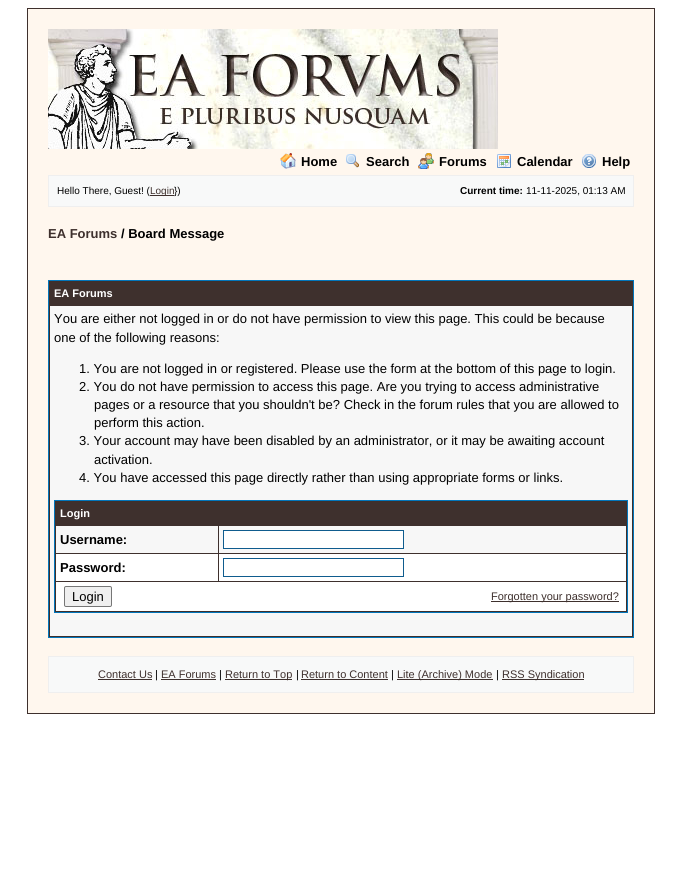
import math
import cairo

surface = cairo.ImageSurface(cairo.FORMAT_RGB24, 682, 871)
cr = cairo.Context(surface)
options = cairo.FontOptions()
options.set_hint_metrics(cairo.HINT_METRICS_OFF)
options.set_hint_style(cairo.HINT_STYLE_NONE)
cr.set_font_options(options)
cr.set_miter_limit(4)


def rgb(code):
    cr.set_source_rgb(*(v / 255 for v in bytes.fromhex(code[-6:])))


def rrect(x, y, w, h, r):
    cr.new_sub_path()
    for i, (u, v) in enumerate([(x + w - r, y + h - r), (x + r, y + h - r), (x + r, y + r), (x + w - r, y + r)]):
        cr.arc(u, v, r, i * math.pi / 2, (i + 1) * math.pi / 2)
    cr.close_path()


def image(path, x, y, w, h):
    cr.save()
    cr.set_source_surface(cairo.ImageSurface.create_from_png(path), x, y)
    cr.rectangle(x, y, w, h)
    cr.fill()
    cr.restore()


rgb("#ffffff")
cr.paint()
rgb("#fff7ee")
cr.rectangle(27.5, 8.5, 627, 705)
cr.fill_preserve()
rgb("#3e302d")
cr.set_line_width(1)
cr.stroke()
image("img/1.png", 48, 29, 450, 120)
image("img/2.png", 280, 153, 16, 16)
image("img/3.png", 346, 154, 13, 14)
image("img/4.png", 418, 153, 16, 16)
image("img/5.png", 497, 154, 14, 14)
image("img/6.png", 582, 154, 14, 14)
rgb("#f8f9f9")
cr.rectangle(48.5, 175.5, 585, 31)
cr.fill_preserve()
rgb("#efefef")
cr.stroke()
rgb("#3e302d")
cr.rectangle(150, 195, 24, 1)
cr.fill()
cr.rectangle(48.5, 280.5, 585, 357)
cr.fill_preserve()
rgb("#0276bb")
cr.stroke()
rgb("#f7f7f7")
cr.rectangle(50, 306, 582, 330)
cr.fill()
rgb("#3e302d")
cr.rectangle(54.5, 500.5, 573, 112)
cr.fill_preserve()
rgb("#0276bb")
cr.stroke()
rgb("#f7f7f7")
cr.rectangle(56, 526, 162, 27)
cr.fill()
cr.rectangle(219, 526, 407, 27)
cr.fill()
rgb("#ffffff")
cr.rectangle(223.5, 530.5, 180, 18)
cr.fill_preserve()
rgb("#0f5c8e")
cr.stroke()
rgb("#ffffff")
cr.rectangle(56, 554, 162, 27)
cr.fill()
cr.rectangle(219, 554, 407, 27)
cr.fill()
cr.rectangle(223.5, 558.5, 180, 18)
rgb("#0f5c8e")
cr.stroke()
rgb("#ffffff")
cr.rectangle(56, 582, 570, 29)
cr.fill()
rgb("#efefef")
rrect(64.5, 586.5, 47, 20, 1.5)
cr.fill_preserve()
rgb("#767676")
cr.stroke()
rgb("#3e302d")
cr.rectangle(491, 601, 128, 1)
cr.fill()
rgb("#f8f9f9")
cr.rectangle(48.5, 656.5, 585, 36)
cr.fill_preserve()
rgb("#efefef")
cr.stroke()
for x, y, w, h, color in [
    (98, 679, 54, 1, "#3e302d"),
    (161, 679, 55, 1, "#3e302d"),
    (225, 679, 67, 1, "#3e302d"),
    (301, 679, 87, 1, "#3e302d"),
    (397, 679, 96, 1, "#3e302d"),
    (502, 679, 82, 1, "#3e302d"),
]:
    rgb(color)
    cr.rectangle(x, y, w, h)
    cr.fill()
cr.select_font_face("Liberation Sans", cairo.FONT_SLANT_NORMAL, cairo.FONT_WEIGHT_BOLD)
cr.set_font_size(13)
rgb("#000000")
for x, y, s in [
    (301, 166, "Home"),
    (366, 166, "Search"),
    (439, 166, "Forums"),
    (517, 166, "Calendar"),
    (602, 166, "Help"),
]:
    cr.move_to(x, y)
    cr.show_text(s)
cr.select_font_face("Liberation Sans")
cr.set_font_size(10)
cr.move_to(57, 194)
cr.show_text("Hello There, Guest! (")
rgb("#3e302d")
cr.move_to(150, 194)
cr.show_text("Login")
rgb("#000000")
cr.move_to(174, 194)
cr.show_text("})")
cr.select_font_face("Liberation Sans", cairo.FONT_SLANT_NORMAL, cairo.FONT_WEIGHT_BOLD)
cr.move_to(460, 194)
cr.show_text("Current time:")
cr.select_font_face("Liberation Sans")
cr.move_to(526, 194)
cr.show_text("11-11-2025, 01:13 AM")
cr.select_font_face("Liberation Sans", cairo.FONT_SLANT_NORMAL, cairo.FONT_WEIGHT_BOLD)
cr.set_font_size(13)
rgb("#3e302d")
cr.move_to(48, 238)
cr.show_text("EA Forums")
rgb("#000000")
cr.move_to(121, 238)
cr.show_text("/ Board Message")
cr.set_font_size(11)
rgb("#ffffff")
cr.move_to(54, 297)
cr.show_text("EA Forums")
cr.select_font_face("Liberation Sans")
cr.set_font_size(13)
rgb("#000000")
for x, y, s in [
    (54, 323, "You are either not logged in or do not have permission to view this page. This could be because"),
    (54, 342, "one of the following reasons:"),
    (79, 373, "1. You are not logged in or registered. Please use the form at the bottom of this page to login."),
    (79, 391, "2. You do not have permission to access this page. Are you trying to access administrative"),
    (94, 409, "pages or a resource that you shouldn't be? Check in the forum rules that you are allowed to"),
    (94, 427, "perform this action."),
    (79, 445, "3. Your account may have been disabled by an administrator, or it may be awaiting account"),
    (94, 464, "activation."),
    (79, 482, "4. You have accessed this page directly rather than using appropriate forms or links."),
]:
    cr.move_to(x, y)
    cr.show_text(s)
cr.select_font_face("Liberation Sans", cairo.FONT_SLANT_NORMAL, cairo.FONT_WEIGHT_BOLD)
cr.set_font_size(11)
rgb("#ffffff")
cr.move_to(60, 517)
cr.show_text("Login")
cr.set_font_size(13)
rgb("#000000")
cr.move_to(60, 544)
cr.show_text("Username:")
cr.move_to(60, 572)
cr.show_text("Password:")
cr.select_font_face("Liberation Sans")
cr.move_to(72, 601)
cr.show_text("Login")
cr.set_font_size(11)
rgb("#3e302d")
cr.move_to(491, 600)
cr.show_text("Forgotten your password?")
cr.move_to(98, 678)
cr.show_text("Contact Us")
rgb("#000000")
cr.move_to(155, 678)
cr.show_text("|")
rgb("#3e302d")
cr.move_to(161, 678)
cr.show_text("EA Forums")
rgb("#000000")
cr.move_to(219, 678)
cr.show_text("|")
rgb("#3e302d")
cr.move_to(225, 678)
cr.show_text("Return to Top")
rgb("#000000")
cr.move_to(296, 678)
cr.show_text("|")
rgb("#3e302d")
cr.move_to(301, 678)
cr.show_text("Return to Content")
rgb("#000000")
cr.move_to(391, 678)
cr.show_text("|")
rgb("#3e302d")
cr.move_to(397, 678)
cr.show_text("Lite (Archive) Mode")
rgb("#000000")
cr.move_to(496, 678)
cr.show_text("|")
rgb("#3e302d")
cr.move_to(502, 678)
cr.show_text("RSS Syndication")
surface.write_to_png("page.png")
